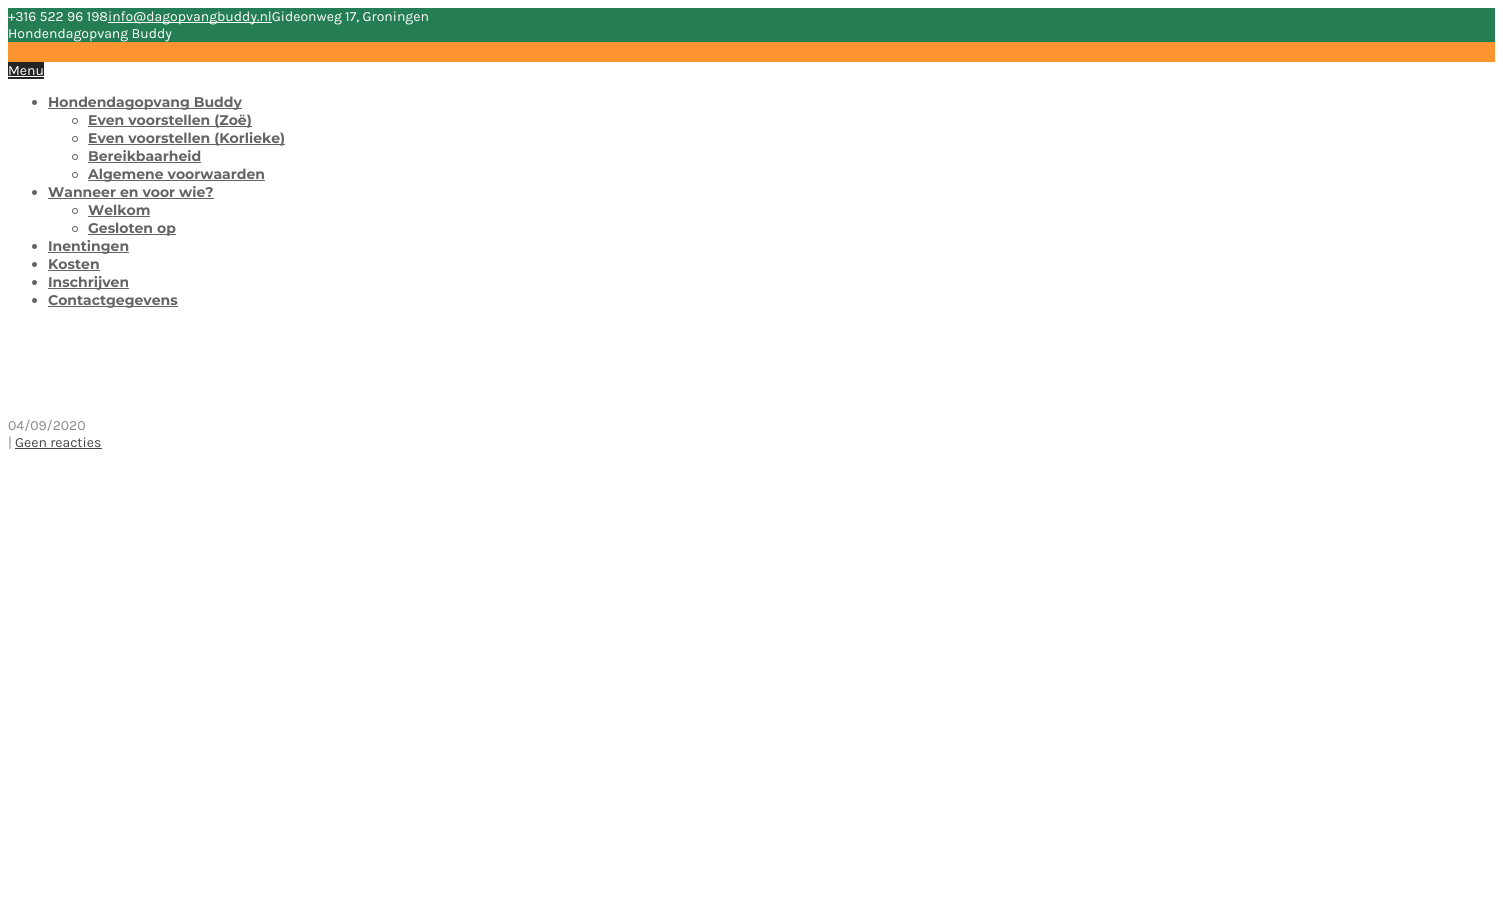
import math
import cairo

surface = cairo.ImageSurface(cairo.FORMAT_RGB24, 1503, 897)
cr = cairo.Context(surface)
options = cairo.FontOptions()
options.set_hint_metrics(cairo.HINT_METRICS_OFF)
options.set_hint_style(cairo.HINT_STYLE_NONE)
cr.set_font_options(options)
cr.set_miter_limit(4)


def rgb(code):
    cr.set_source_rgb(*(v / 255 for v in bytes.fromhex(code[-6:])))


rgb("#ffffff")
cr.paint()
for x, y, w, h, color in [
    (8, 8, 1487, 34, "#257d53"),
    (108, 22, 164, 1, "#ffffff"),
    (8, 42, 1487, 20, "#fc9530"),
    (8, 62, 36, 17, "#242424"),
    (8, 76, 36, 1, "#ffffff"),
]:
    rgb(color)
    cr.rectangle(x, y, w, h)
    cr.fill()
rgb("#646464")
cr.arc(34.5, 102.5, 2.5, 0, 2 * math.pi)
cr.fill()
cr.rectangle(48, 108, 194, 1)
cr.fill()
cr.arc(75, 121, 2.5, 0, 2 * math.pi)
cr.set_line_width(1)
cr.stroke()
cr.rectangle(88, 126, 164, 1)
cr.fill()
cr.arc(75, 139, 2.5, 0, 2 * math.pi)
cr.stroke()
cr.rectangle(88, 144, 197, 1)
cr.fill()
cr.arc(75, 157, 2.5, 0, 2 * math.pi)
cr.stroke()
cr.rectangle(88, 162, 113, 1)
cr.fill()
cr.arc(75, 175, 2.5, 0, 2 * math.pi)
cr.stroke()
cr.rectangle(88, 180, 177, 1)
cr.fill()
cr.arc(34.5, 192.5, 2.5, 0, 2 * math.pi)
cr.fill()
cr.rectangle(48, 198, 166, 1)
cr.fill()
cr.arc(75, 211, 2.5, 0, 2 * math.pi)
cr.stroke()
cr.rectangle(88, 216, 62, 1)
cr.fill()
cr.arc(75, 229, 2.5, 0, 2 * math.pi)
cr.stroke()
cr.rectangle(88, 234, 88, 1)
cr.fill()
cr.arc(34.5, 246.5, 2.5, 0, 2 * math.pi)
cr.fill()
cr.rectangle(48, 252, 81, 1)
cr.fill()
cr.arc(34.5, 264.5, 2.5, 0, 2 * math.pi)
cr.fill()
cr.rectangle(48, 270, 52, 1)
cr.fill()
cr.arc(34.5, 282.5, 2.5, 0, 2 * math.pi)
cr.fill()
cr.rectangle(48, 288, 81, 1)
cr.fill()
cr.arc(34.5, 300.5, 2.5, 0, 2 * math.pi)
cr.fill()
cr.rectangle(48, 306, 130, 1)
cr.fill()
rgb("#444444")
cr.rectangle(15, 448, 87, 1)
cr.fill()
cr.select_font_face("Karla")
cr.set_font_size(14)
rgb("#ffffff")
for x, y, s in [
    (8, 21, "+316 522 96 198"),
    (108, 21, "info@dagopvangbuddy.nlGideonweg 17, Groningen"),
    (8, 38, "Hondendagopvang Buddy"),
    (8, 75, "Menu"),
]:
    cr.move_to(x, y)
    cr.show_text(s)
cr.select_font_face("Montserrat", cairo.FONT_SLANT_NORMAL, cairo.FONT_WEIGHT_BOLD)
rgb("#646464")
for x, y, s in [
    (48, 107, "Hondendagopvang Buddy"),
    (88, 125, "Even voorstellen (Zoë)"),
    (88, 143, "Even voorstellen (Korlieke)"),
    (88, 161, "Bereikbaarheid"),
    (88, 179, "Algemene voorwaarden"),
    (48, 197, "Wanneer en voor wie?"),
    (88, 215, "Welkom"),
    (88, 233, "Gesloten op"),
    (48, 251, "Inentingen"),
    (48, 269, "Kosten"),
    (48, 287, "Inschrijven"),
    (48, 305, "Contactgegevens"),
]:
    cr.move_to(x, y)
    cr.show_text(s)
cr.select_font_face("Karla")
rgb("#8a8989")
cr.move_to(8, 430)
cr.show_text("04/09/2020")
cr.move_to(8, 447)
cr.show_text("|")
rgb("#444444")
cr.move_to(15, 447)
cr.show_text("Geen reacties")
surface.write_to_png("page.png")
